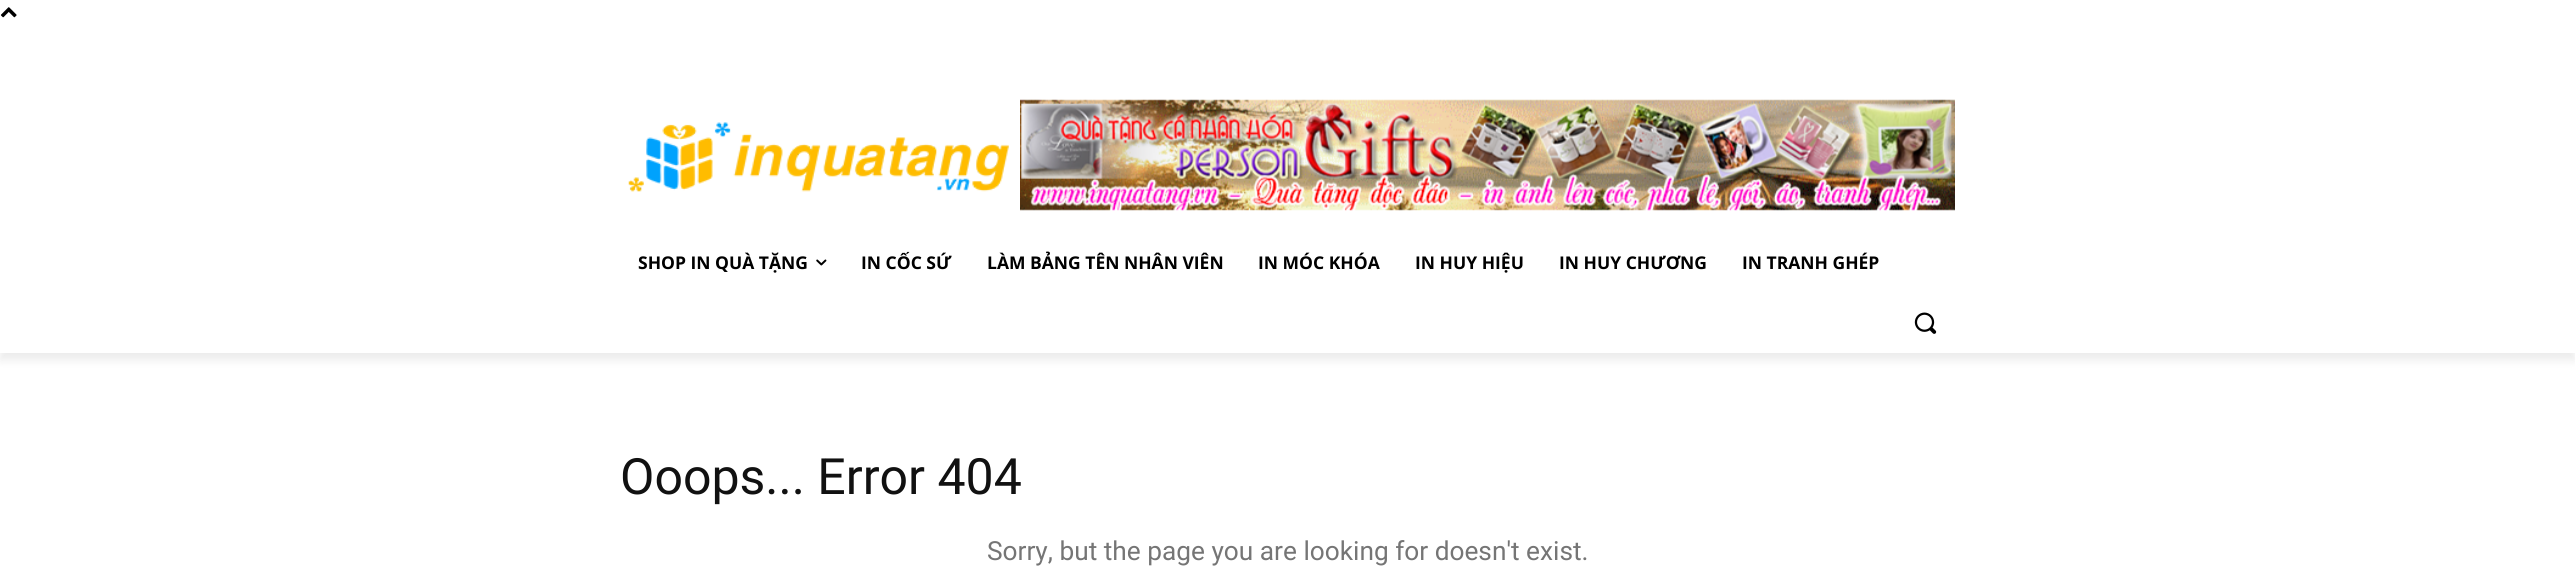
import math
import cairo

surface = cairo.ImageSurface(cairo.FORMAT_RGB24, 2575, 579)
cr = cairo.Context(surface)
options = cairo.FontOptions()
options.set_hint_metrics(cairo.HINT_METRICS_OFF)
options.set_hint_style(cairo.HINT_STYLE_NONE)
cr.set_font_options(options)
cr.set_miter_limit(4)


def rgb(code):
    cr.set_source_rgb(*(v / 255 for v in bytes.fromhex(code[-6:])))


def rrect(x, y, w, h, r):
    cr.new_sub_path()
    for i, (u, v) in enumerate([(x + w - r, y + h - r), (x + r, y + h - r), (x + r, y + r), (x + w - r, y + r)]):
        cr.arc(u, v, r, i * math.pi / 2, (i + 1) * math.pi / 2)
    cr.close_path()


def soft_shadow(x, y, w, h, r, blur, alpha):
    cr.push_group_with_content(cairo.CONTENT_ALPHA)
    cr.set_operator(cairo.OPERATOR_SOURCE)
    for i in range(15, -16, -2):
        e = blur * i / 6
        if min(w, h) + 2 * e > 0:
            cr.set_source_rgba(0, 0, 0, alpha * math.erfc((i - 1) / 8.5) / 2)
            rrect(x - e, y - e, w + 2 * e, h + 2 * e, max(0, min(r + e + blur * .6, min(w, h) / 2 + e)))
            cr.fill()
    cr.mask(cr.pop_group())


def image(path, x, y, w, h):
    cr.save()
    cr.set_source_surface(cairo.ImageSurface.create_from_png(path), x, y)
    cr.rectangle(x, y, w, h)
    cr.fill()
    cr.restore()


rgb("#ffffff")
cr.paint()
image("img/1.png", 0, 7, 17, 11)
image("img/2.png", 628, 122, 381, 70)
image("img/3.png", 1020, 99, 935, 112)
image("img/4.png", 816, 259, 11, 7)
image("img/5.png", 1914, 312, 23, 22)
cr.save()
cr.set_fill_rule(cairo.FILL_RULE_EVEN_ODD)
cr.new_path()
cr.move_to(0, 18)
cr.line_to(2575, 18)
cr.line_to(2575, 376)
cr.line_to(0, 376)
cr.close_path()
cr.move_to(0, 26)
cr.line_to(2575, 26)
cr.line_to(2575, 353)
cr.line_to(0, 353)
cr.close_path()
cr.clip()
rgb("#000000")
soft_shadow(0, 34, 2575, 326, 0, 5, 0.08)
cr.restore()
cr.select_font_face("Open Sans", cairo.FONT_SLANT_NORMAL, cairo.FONT_WEIGHT_BOLD)
cr.set_font_size(17.5)
rgb("#000000")
for x, y, s in [
    (638, 269, "SHOP IN QUÀ TẶNG"),
    (861, 269, "IN CỐC SỨ"),
    (987, 269, "LÀM BẢNG TÊN NHÂN VIÊN"),
    (1258, 269, "IN MÓC KHÓA"),
    (1415, 269, "IN HUY HIỆU"),
    (1559, 269, "IN HUY CHƯƠNG"),
    (1742, 269, "IN TRANH GHÉP"),
]:
    cr.move_to(x, y)
    cr.show_text(s)
cr.select_font_face("Roboto")
cr.set_font_size(50)
rgb("#111111")
cr.move_to(620, 494)
cr.show_text("Ooops... Error 404")
cr.set_font_size(26.25)
rgb("#757575")
cr.move_to(987, 560)
cr.show_text("Sorry, but the page you are looking for doesn't exist.")
surface.write_to_png("page.png")
